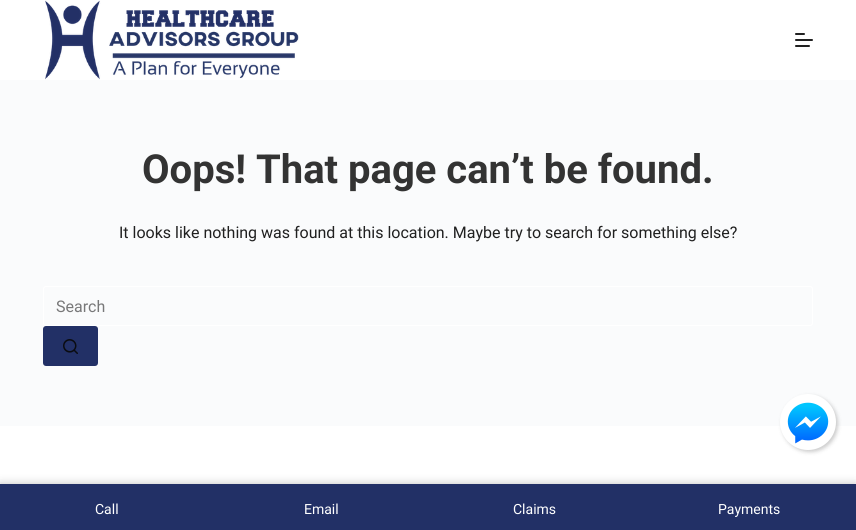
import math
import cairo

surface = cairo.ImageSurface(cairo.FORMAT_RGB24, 856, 530)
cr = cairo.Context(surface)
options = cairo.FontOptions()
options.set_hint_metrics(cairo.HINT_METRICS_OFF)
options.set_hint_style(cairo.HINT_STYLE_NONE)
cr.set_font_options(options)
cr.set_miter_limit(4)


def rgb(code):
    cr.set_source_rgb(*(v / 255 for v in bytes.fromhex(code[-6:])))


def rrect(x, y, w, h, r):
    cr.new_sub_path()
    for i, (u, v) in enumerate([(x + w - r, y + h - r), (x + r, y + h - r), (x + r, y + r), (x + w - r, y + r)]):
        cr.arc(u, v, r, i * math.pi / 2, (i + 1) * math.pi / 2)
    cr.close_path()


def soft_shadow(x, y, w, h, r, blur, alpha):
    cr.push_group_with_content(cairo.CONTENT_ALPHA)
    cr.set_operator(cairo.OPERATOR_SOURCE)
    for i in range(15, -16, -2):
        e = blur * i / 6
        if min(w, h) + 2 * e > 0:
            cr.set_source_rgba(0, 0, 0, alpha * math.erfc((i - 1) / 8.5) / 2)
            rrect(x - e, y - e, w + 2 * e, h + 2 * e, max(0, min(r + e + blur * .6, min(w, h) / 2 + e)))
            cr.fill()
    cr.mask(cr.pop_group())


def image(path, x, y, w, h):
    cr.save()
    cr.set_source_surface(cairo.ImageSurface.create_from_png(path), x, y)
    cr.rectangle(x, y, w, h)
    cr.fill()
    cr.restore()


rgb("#fafbfc")
cr.paint()
rgb("#ffffff")
cr.rectangle(0, 0, 856, 80)
cr.fill()
image("img/1.png", 45, 0, 254, 80)
rgb("#212121")
rrect(795, 33, 10, 2, 1)
cr.fill()
rrect(795, 39, 18, 2, 1)
cr.fill()
rrect(795, 45, 15, 2, 1)
cr.fill()
rrect(43.5, 286.5, 769, 39, 2.5)
rgb("#ffffff")
cr.set_line_width(1)
cr.stroke()
rgb("#223066")
rrect(43, 326, 55, 40, 3)
cr.fill()
image("img/2.png", 63, 339, 15, 15)
rgb("#ffffff")
cr.rectangle(0, 426, 856, 58)
cr.fill()
rgb("#000000")
soft_shadow(0, 484, 856, 46, 0, 4.5, 0.25)
rgb("#223066")
cr.rectangle(0, 484, 856, 46)
cr.fill()
rgb("#000000")
soft_shadow(782, 396, 56, 56, 28, 2, 0.2)
image("img/3.png", 780, 394, 56, 56)
cr.select_font_face("Roboto", cairo.FONT_SLANT_NORMAL, cairo.FONT_WEIGHT_BOLD)
cr.set_font_size(40)
rgb("#333333")
cr.move_to(142, 183)
cr.show_text("Oops! That page can’t be found.")
cr.select_font_face("Roboto")
cr.set_font_size(16)
rgb("#202020")
cr.move_to(119, 238)
cr.show_text("It looks like nothing was found at this location. Maybe try to search for something else?")
rgb("#787879")
cr.move_to(56, 312)
cr.show_text("Search")
cr.set_font_size(14)
rgb("#ffffff")
for x, y, s in [
    (95, 514, "Call"),
    (304, 514, "Email"),
    (513, 514, "Claims"),
    (718, 514, "Payments"),
]:
    cr.move_to(x, y)
    cr.show_text(s)
surface.write_to_png("page.png")
